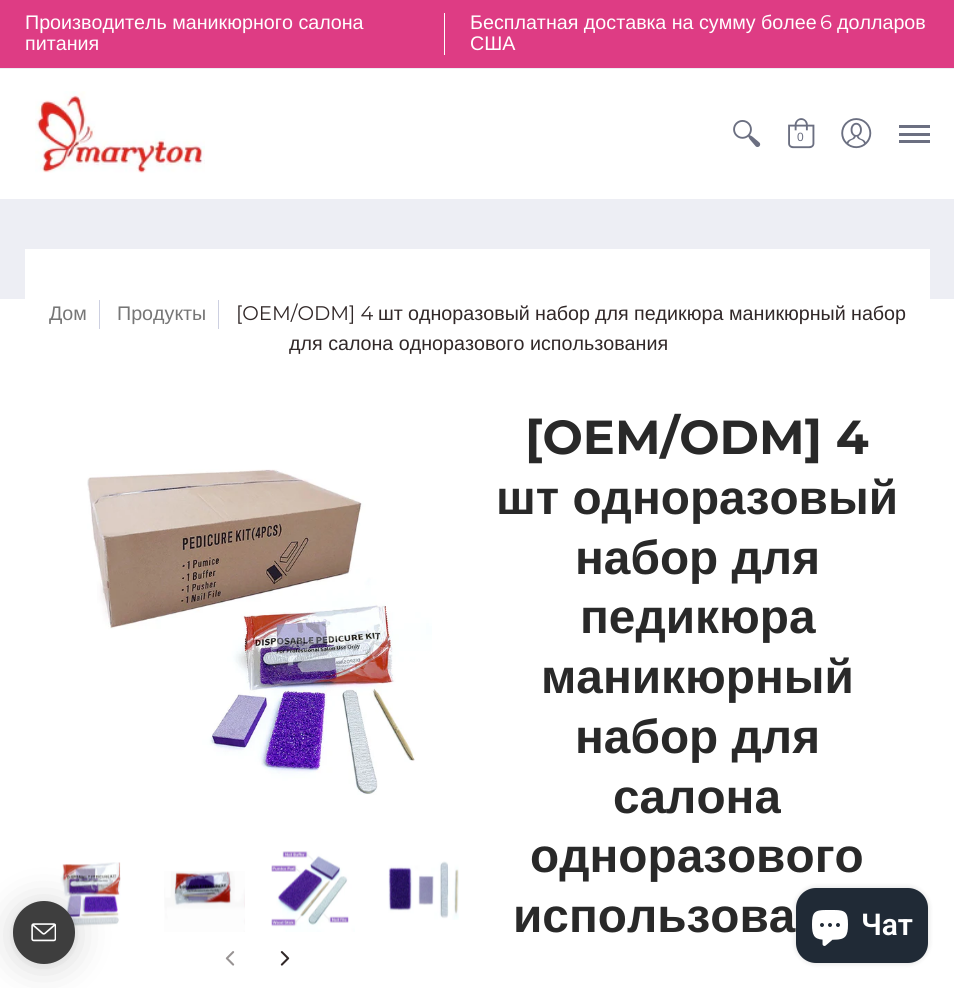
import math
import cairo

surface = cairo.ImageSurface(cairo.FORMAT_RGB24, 954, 988)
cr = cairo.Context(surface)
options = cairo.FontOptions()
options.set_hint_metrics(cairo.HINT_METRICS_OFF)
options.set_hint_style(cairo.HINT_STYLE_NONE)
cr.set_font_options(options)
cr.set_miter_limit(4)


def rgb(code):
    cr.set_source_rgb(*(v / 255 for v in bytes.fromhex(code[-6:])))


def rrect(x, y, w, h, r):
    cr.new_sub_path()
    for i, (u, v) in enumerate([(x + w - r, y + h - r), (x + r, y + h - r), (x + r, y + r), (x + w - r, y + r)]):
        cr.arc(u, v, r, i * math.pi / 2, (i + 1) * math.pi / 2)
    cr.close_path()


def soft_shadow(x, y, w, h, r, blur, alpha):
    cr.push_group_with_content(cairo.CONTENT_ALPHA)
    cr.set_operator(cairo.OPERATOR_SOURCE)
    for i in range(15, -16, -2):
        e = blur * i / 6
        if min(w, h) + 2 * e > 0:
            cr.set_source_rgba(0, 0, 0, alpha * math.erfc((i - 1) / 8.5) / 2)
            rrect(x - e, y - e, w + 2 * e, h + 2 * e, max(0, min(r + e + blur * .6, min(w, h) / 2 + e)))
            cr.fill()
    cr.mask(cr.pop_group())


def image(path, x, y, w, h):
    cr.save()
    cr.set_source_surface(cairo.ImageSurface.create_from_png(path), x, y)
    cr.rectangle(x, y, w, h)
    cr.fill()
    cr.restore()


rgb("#ffffff")
cr.paint()
for x, y, w, h, color in [
    (0, 0, 954, 68, "#de3c84"),
    (0, 68, 954, 1, "#edeef4"),
    (444, 13, 1, 42, "#ffffff"),
]:
    rgb(color)
    cr.rectangle(x, y, w, h)
    cr.fill()
image("img/1.png", 35, 91, 170, 82)
image("img/2.png", 733, 120, 28, 27)
image("img/3.png", 788, 118, 27, 31)
image("img/4.png", 841, 118, 31, 31)
for x, y, w, h, color in [
    (899, 125, 31, 3, "#6b6f81"),
    (899, 140, 31, 3, "#6b6f81"),
    (899, 133, 31, 3, "#6b6f81"),
    (0, 199, 954, 100, "#edeef4"),
    (25, 249, 905, 50, "#ffffff"),
    (99, 300, 1, 29, "#cdd0e1"),
    (218, 300, 1, 29, "#cdd0e1"),
]:
    rgb(color)
    cr.rectangle(x, y, w, h)
    cr.fill()
image("img/5.png", 87, 469, 345, 326)
image("img/6.png", 50, 862, 71, 70)
image("img/7.png", 164, 871, 81, 61)
image("img/8.png", 271, 851, 84, 81)
image("img/9.png", 388, 861, 71, 59)
image("img/10.png", 225, 951, 10, 15)
image("img/11.png", 280, 951, 10, 15)
rgb("#000000")
soft_shadow(13, 904, 62, 62, 31, 20, 0.16)
soft_shadow(13, 903, 62, 62, 31, 4, 0.06)
rgb("#3e3e3e")
rrect(13, 901, 62, 63, 31)
cr.fill()
image("img/12.png", 31, 923, 25, 19)
rgb("#000000")
soft_shadow(796, 888, 132, 75, 20, 3, 0.15)
cr.select_font_face("Liberation Sans")
cr.set_font_size(19.7)
rgb("#ffffff")
for x, y, s in [
    (25, 29, "Производитель маникюрного салона"),
    (25, 50, "питания"),
    (470, 29, "Бесплатная доставка на сумму более"),
]:
    cr.move_to(x, y)
    cr.show_text(s)
cr.select_font_face("Montserrat")
cr.move_to(820, 29)
cr.show_text("6")
cr.select_font_face("Liberation Sans")
cr.move_to(837, 29)
cr.show_text("долларов")
cr.move_to(470, 50)
cr.show_text("США")
cr.set_font_size(12)
rgb("#6b6f81")
cr.move_to(797, 141)
cr.show_text("0")
cr.set_font_size(19.7)
rgb("#767676")
cr.move_to(49, 320)
cr.show_text("Дом")
cr.move_to(117, 320)
cr.show_text("Продукты")
cr.select_font_face("Montserrat")
rgb("#312828")
cr.move_to(236, 320)
cr.show_text("[OEM/ODM] 4")
cr.select_font_face("Liberation Sans")
for x, y, s in [
    (378, 320, "шт"),
    (408, 320, "одноразовый"),
    (535, 320, "набор"),
    (595, 320, "для"),
    (634, 320, "педикюра"),
    (729, 320, "маникюрный"),
    (851, 320, "набор"),
    (289, 350, "для салона одноразового использования"),
]:
    cr.move_to(x, y)
    cr.show_text(s)
cr.select_font_face("Montserrat", cairo.FONT_SLANT_NORMAL, cairo.FONT_WEIGHT_BOLD)
cr.set_font_size(47.75)
rgb("#292929")
cr.move_to(525, 454)
cr.show_text("[OEM/ODM] 4")
cr.select_font_face("Liberation Sans", cairo.FONT_SLANT_NORMAL, cairo.FONT_WEIGHT_BOLD)
for x, y, s in [
    (496, 514, "шт одноразовый"),
    (575, 574, "набор для"),
    (580, 633, "педикюра"),
    (541, 693, "маникюрный"),
    (575, 753, "набор для"),
    (613, 813, "салона"),
    (530, 872, "одноразового"),
    (513, 932, "использова"),
]:
    cr.move_to(x, y)
    cr.show_text(s)
rgb("#202a36")
rrect(796, 888, 132, 75, 20)
cr.fill()
image("img/13.png", 812, 910, 36, 36)
cr.select_font_face("Roboto SemiBold")
cr.set_font_size(30)
rgb("#ffffff")
cr.move_to(861, 935)
cr.show_text("Чат")
surface.write_to_png("page.png")
